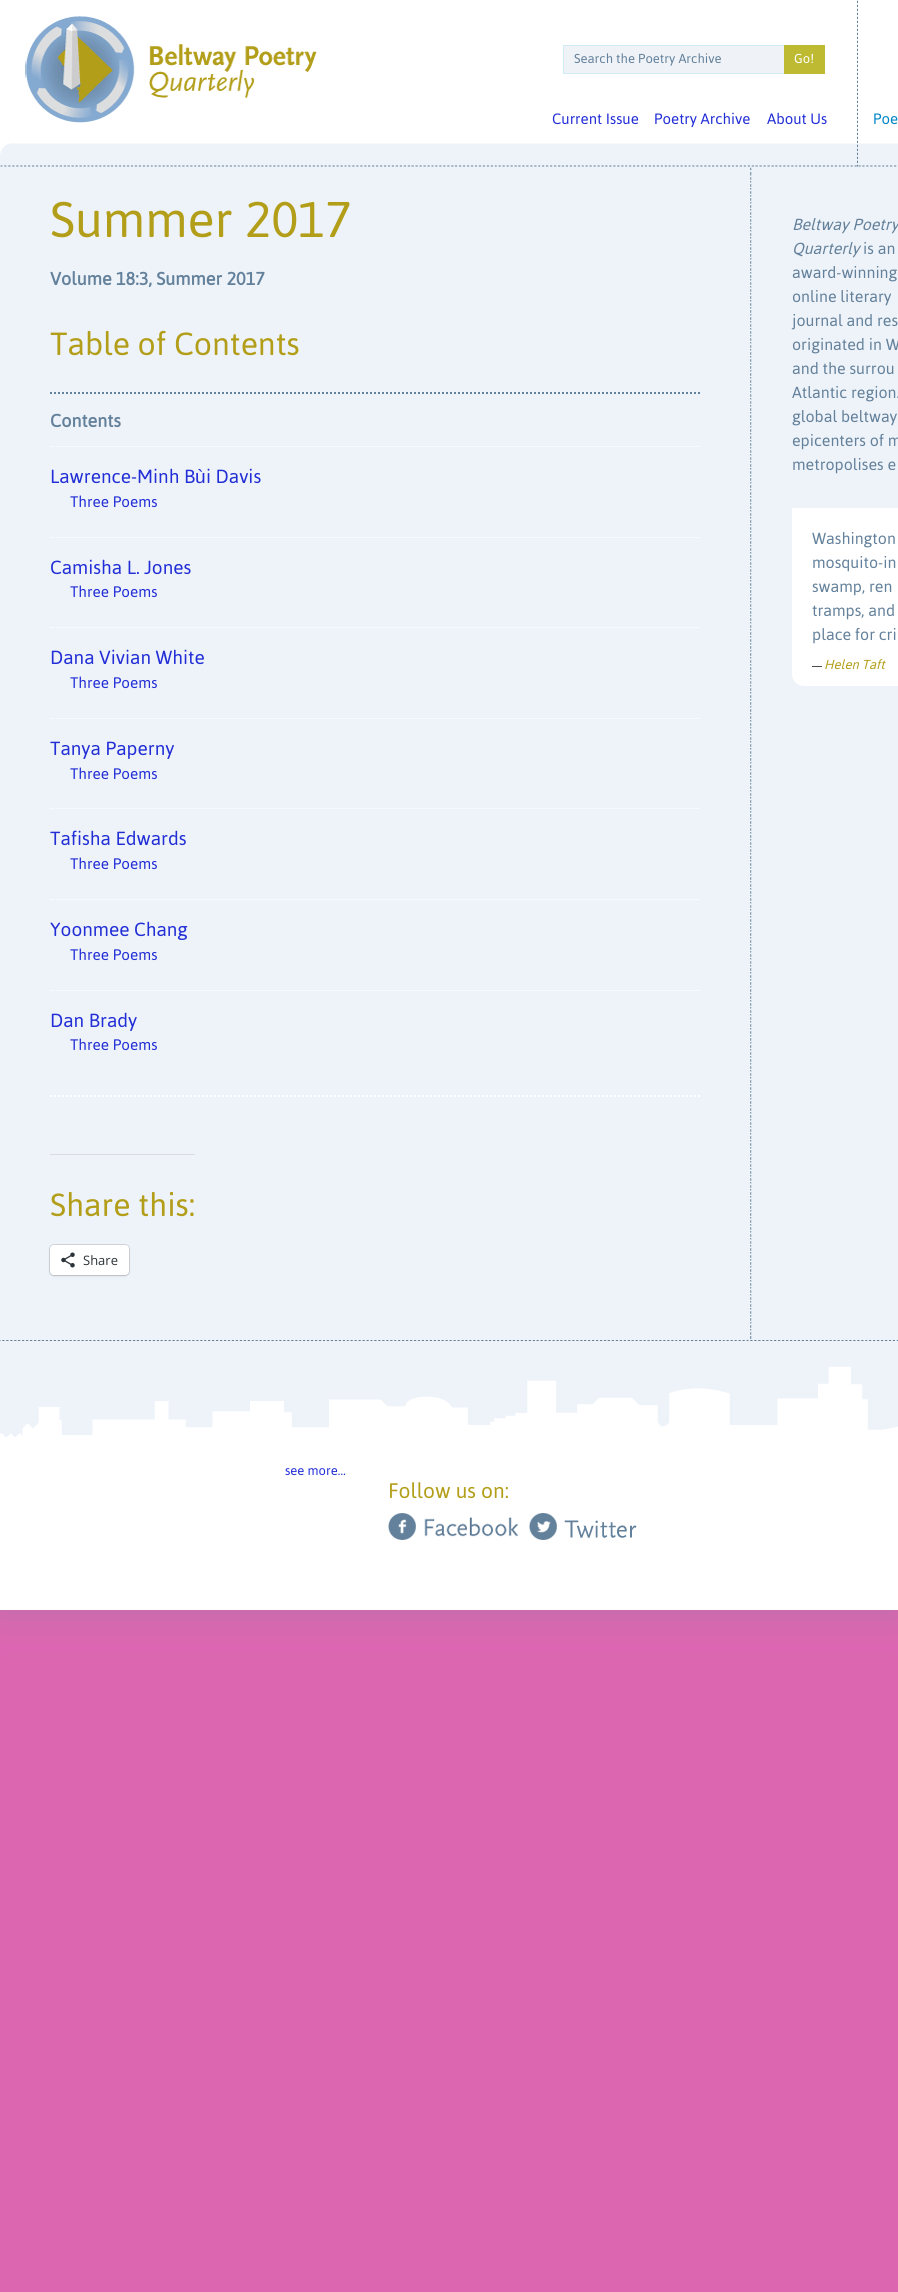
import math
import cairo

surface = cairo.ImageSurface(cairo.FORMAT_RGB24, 898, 2292)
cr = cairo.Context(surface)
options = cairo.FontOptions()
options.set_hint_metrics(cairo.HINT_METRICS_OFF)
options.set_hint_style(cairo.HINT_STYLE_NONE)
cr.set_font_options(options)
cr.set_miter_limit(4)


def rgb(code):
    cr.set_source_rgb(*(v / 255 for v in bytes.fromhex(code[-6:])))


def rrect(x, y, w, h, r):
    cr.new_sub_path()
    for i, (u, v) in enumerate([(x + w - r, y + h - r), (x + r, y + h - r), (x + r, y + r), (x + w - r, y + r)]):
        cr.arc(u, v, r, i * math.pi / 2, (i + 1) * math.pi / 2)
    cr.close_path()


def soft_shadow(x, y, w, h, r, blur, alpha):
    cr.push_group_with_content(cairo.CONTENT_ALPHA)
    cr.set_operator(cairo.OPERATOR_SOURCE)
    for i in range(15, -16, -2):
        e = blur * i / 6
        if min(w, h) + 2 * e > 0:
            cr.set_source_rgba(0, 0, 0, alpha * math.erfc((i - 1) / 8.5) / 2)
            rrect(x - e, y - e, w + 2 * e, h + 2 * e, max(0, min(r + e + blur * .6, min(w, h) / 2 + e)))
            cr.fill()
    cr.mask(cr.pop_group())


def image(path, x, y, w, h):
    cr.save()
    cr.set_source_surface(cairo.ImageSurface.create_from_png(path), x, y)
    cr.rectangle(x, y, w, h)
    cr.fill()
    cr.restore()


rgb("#dd66b1")
cr.paint()
rgb("#6a84a3")
soft_shadow(0, 0, 898, 1610, 0, 22.5, 0.33)
rgb("#ffffff")
cr.rectangle(0, 1437, 898, 173)
cr.fill()
rgb("#eef3f9")
cr.rectangle(0, 174, 898, 1163)
cr.fill()
image("img/1.png", 0, 0, 898, 174)
image("img/2.png", 25, 16, 292, 107)
for x, y, w, h, color in [
    (564, 46, 220, 27, "#eff3f8"),
    (563, 45, 221, 1, "#ceecf2"),
    (563, 73, 221, 1, "#ceecf2"),
    (563, 45, 1, 29, "#ceecf2"),
    (784, 45, 41, 29, "#beba32"),
]:
    rgb(color)
    cr.rectangle(x, y, w, h)
    cr.fill()
image("img/3.png", 750, 174, 2, 1163)
image("img/4.png", 0, 1337, 898, 100)
cr.new_path()
cr.move_to(50, 393)
cr.line_to(700, 393)
rgb("#64819b")
cr.set_dash([2, 2])
cr.stroke()
cr.new_path()
cr.move_to(50, 446.5)
cr.line_to(700, 446.5)
rgb("#ffffff")
cr.set_line_width(1)
cr.set_dash([1, 1])
cr.stroke()
cr.new_path()
cr.move_to(50, 537.5)
cr.line_to(700, 537.5)
cr.stroke()
cr.new_path()
cr.move_to(50, 627.5)
cr.line_to(700, 627.5)
cr.stroke()
cr.new_path()
cr.move_to(50, 718.5)
cr.line_to(700, 718.5)
cr.stroke()
cr.new_path()
cr.move_to(50, 808.5)
cr.line_to(700, 808.5)
cr.stroke()
cr.new_path()
cr.move_to(50, 899.5)
cr.line_to(700, 899.5)
cr.stroke()
cr.new_path()
cr.move_to(50, 990.5)
cr.line_to(700, 990.5)
cr.stroke()
cr.new_path()
cr.move_to(50, 1096)
cr.line_to(700, 1096)
cr.set_line_width(2)
cr.set_dash([2, 2])
cr.stroke()
rgb("#dcdcde")
cr.rectangle(50, 1154, 145, 1)
cr.fill()
rrect(49.5, 1244.5, 80, 31, 4.5)
rgb("#d1d6db")
cr.set_line_width(1)
cr.set_dash([])
cr.stroke()
rgb("#000000")
soft_shadow(50, 1246, 79, 30, 4, 1, 0.12)
rgb("#ffffff")
rrect(50, 1245, 79, 30, 4)
cr.fill()
image("img/5.png", 61, 1252, 14, 16)
cr.new_path()
cr.move_to(792, 508)
cr.line_to(898, 508)
cr.curve_to(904.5, 508, 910, 513.5, 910, 520)
cr.line_to(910, 674)
cr.curve_to(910, 680.5, 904.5, 686, 898, 686)
cr.line_to(804, 686)
cr.curve_to(797.5, 686, 792, 680.5, 792, 674)
cr.close_path()
cr.fill()
image("img/6.png", 388, 1513, 131, 27)
image("img/7.png", 529, 1513, 108, 27)
cr.select_font_face("Asap")
cr.set_font_size(13)
rgb("#64819b")
cr.move_to(574, 63)
cr.show_text("Search the Poetry Archive")
rgb("#ffffff")
cr.move_to(794, 63)
cr.show_text("Go!")
cr.set_font_size(15)
rgb("#222ed6")
for x, y, s in [
    (552, 124, "Current Issue"),
    (654, 124, "Poetry Archive"),
    (767, 124, "About Us"),
]:
    cr.move_to(x, y)
    cr.show_text(s)
rgb("#0086c7")
cr.move_to(873, 124)
cr.show_text("Poe")
cr.set_font_size(50)
rgb("#b39e1a")
cr.move_to(50, 237)
cr.show_text("Summer 2017")
cr.select_font_face("Asap", cairo.FONT_SLANT_NORMAL, cairo.FONT_WEIGHT_BOLD)
cr.set_font_size(18)
rgb("#64819b")
cr.move_to(50, 285)
cr.show_text("Volume 18:3, Summer 2017")
cr.select_font_face("Asap")
cr.set_font_size(32)
rgb("#b39e1a")
cr.move_to(50, 355)
cr.show_text("Table of Contents")
cr.select_font_face("Asap", cairo.FONT_SLANT_NORMAL, cairo.FONT_WEIGHT_BOLD)
cr.set_font_size(18)
rgb("#64819b")
cr.move_to(50, 427)
cr.show_text("Contents")
cr.select_font_face("Asap")
cr.set_font_size(19)
rgb("#222ed6")
cr.move_to(50, 483)
cr.show_text("Lawrence-Minh B")
cr.select_font_face("Liberation Sans")
cr.move_to(195, 483)
cr.show_text("ù")
cr.select_font_face("Asap")
cr.move_to(206, 483)
cr.show_text("i Davis")
cr.set_font_size(15.25)
cr.move_to(70, 507)
cr.show_text("Three Poems")
cr.set_font_size(19)
cr.move_to(50, 574)
cr.show_text("Camisha L. Jones")
cr.set_font_size(15.25)
cr.move_to(70, 597)
cr.show_text("Three Poems")
cr.set_font_size(19)
cr.move_to(50, 664)
cr.show_text("Dana Vivian White")
cr.set_font_size(15.25)
cr.move_to(70, 688)
cr.show_text("Three Poems")
cr.set_font_size(19)
cr.move_to(50, 755)
cr.show_text("Tanya Paperny")
cr.set_font_size(15.25)
cr.move_to(70, 779)
cr.show_text("Three Poems")
cr.set_font_size(19)
cr.move_to(50, 845)
cr.show_text("Tafisha Edwards")
cr.set_font_size(15.25)
cr.move_to(70, 869)
cr.show_text("Three Poems")
cr.set_font_size(19)
cr.move_to(50, 936)
cr.show_text("Yoonmee Chang")
cr.set_font_size(15.25)
cr.move_to(70, 960)
cr.show_text("Three Poems")
cr.set_font_size(19)
cr.move_to(50, 1027)
cr.show_text("Dan Brady")
cr.set_font_size(15.25)
cr.move_to(70, 1050)
cr.show_text("Three Poems")
cr.set_font_size(32)
rgb("#b39e1a")
cr.move_to(50, 1216)
cr.show_text("Share this:")
cr.select_font_face("Open Sans")
cr.set_font_size(13)
rgb("#2c3338")
cr.move_to(83, 1265)
cr.show_text("Share")
cr.select_font_face("Asap", cairo.FONT_SLANT_ITALIC)
cr.set_font_size(16)
rgb("#64819b")
cr.move_to(792, 230)
cr.show_text("Beltway Poetry")
cr.move_to(792, 254)
cr.show_text("Quarterly")
cr.select_font_face("Asap")
for x, y, s in [
    (863, 254, "is an"),
    (792, 278, "award-winning"),
    (792, 302, "online literary"),
    (792, 326, "journal and res"),
    (792, 350, "originated in W"),
    (792, 374, "and the surrou"),
    (792, 398, "Atlantic region."),
    (792, 422, "global beltway"),
    (792, 446, "epicenters of m"),
    (792, 470, "metropolises e"),
    (812, 544, "Washington"),
    (812, 568, "mosquito-in"),
    (812, 592, "swamp, ren"),
    (812, 616, "tramps, and"),
    (812, 640, "place for cri"),
]:
    cr.move_to(x, y)
    cr.show_text(s)
cr.set_font_size(10)
rgb("#000000")
cr.move_to(812, 669)
cr.show_text("—")
cr.select_font_face("Asap", cairo.FONT_SLANT_ITALIC)
cr.set_font_size(13)
rgb("#b39e1a")
cr.move_to(824, 669)
cr.show_text("Helen Taft")
cr.select_font_face("Asap")
rgb("#222ed6")
cr.move_to(285, 1475)
cr.show_text("see more…")
cr.set_font_size(21)
rgb("#b39e1a")
cr.move_to(388, 1498)
cr.show_text("Follow us on:")
surface.write_to_png("page.png")
